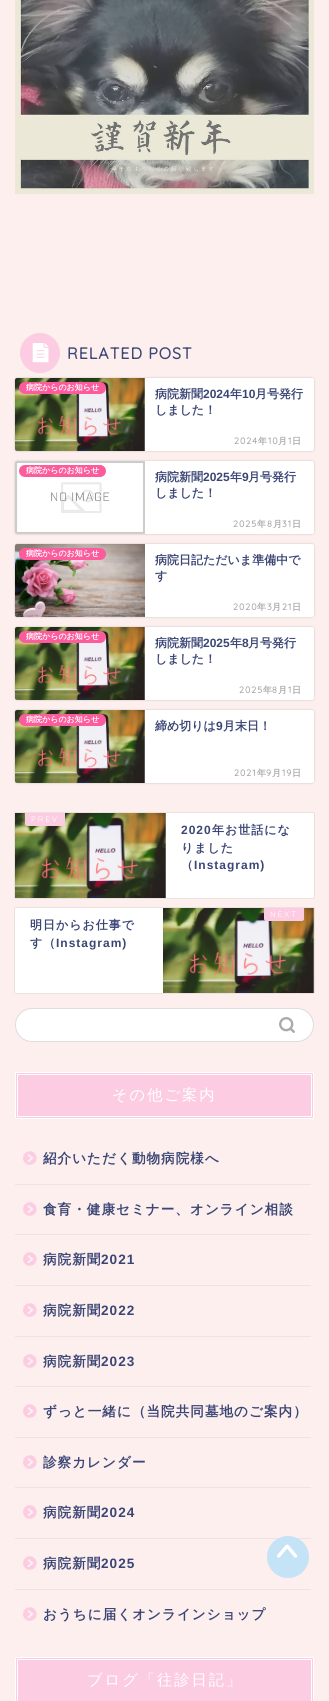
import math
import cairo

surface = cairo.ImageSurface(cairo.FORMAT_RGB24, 329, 1701)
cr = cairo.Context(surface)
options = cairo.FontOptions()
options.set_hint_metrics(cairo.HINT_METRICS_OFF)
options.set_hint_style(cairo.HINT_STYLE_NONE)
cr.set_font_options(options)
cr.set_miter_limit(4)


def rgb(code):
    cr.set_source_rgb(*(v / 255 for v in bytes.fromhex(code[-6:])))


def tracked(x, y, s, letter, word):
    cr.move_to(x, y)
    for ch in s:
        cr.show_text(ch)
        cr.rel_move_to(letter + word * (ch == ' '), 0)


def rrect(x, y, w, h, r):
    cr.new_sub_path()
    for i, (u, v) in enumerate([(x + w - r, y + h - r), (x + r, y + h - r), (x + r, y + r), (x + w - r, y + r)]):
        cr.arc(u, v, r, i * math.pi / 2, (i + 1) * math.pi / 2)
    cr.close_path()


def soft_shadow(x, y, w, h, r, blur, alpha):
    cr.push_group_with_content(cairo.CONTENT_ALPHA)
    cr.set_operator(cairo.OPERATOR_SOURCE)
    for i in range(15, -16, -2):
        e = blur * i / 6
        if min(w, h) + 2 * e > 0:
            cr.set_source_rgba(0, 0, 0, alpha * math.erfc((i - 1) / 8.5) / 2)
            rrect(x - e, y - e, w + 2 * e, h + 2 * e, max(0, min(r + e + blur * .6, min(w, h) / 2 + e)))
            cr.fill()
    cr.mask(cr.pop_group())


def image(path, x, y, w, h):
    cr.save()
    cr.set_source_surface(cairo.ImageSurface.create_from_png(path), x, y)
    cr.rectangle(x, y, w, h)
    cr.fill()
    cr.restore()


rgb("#fcefee")
cr.paint()
image("img/1.png", 15, 0, 299, 194)
rgb("#fccde2")
cr.arc(40, 353, 19.5, 0, 2 * math.pi)
cr.fill_preserve()
cr.set_line_width(1)
cr.stroke()
image("img/2.png", 32, 343, 17, 20)
rgb("#000000")
soft_shadow(15, 378, 299, 73, 2, 1, 0.18)
rgb("#ffffff")
rrect(15, 378, 299, 73, 2)
cr.fill()
image("img/3.png", 15, 378, 130, 73)
rgb("#fc5c9c")
rrect(19, 382, 87, 12, 6)
cr.fill()
rgb("#000000")
soft_shadow(15, 461, 299, 73, 2, 1, 0.18)
rgb("#ffffff")
rrect(15, 461, 299, 73, 2)
cr.fill()
image("img/4.png", 15, 461, 130, 73)
rgb("#fc5c9c")
rrect(19, 465, 87, 12, 6)
cr.fill()
rgb("#000000")
soft_shadow(15, 544, 299, 73, 2, 1, 0.18)
rgb("#ffffff")
rrect(15, 544, 299, 73, 2)
cr.fill()
image("img/5.png", 15, 544, 130, 73)
rgb("#fc5c9c")
rrect(19, 548, 87, 12, 6)
cr.fill()
rgb("#000000")
soft_shadow(15, 627, 299, 73, 2, 1, 0.18)
rgb("#ffffff")
rrect(15, 627, 299, 73, 2)
cr.fill()
image("img/6.png", 15, 627, 130, 73)
rgb("#fc5c9c")
rrect(19, 631, 87, 12, 6)
cr.fill()
rgb("#000000")
soft_shadow(15, 710, 299, 73, 2, 1, 0.18)
rgb("#ffffff")
rrect(15, 710, 299, 73, 2)
cr.fill()
image("img/3.png", 15, 710, 130, 73)
rgb("#fc5c9c")
rrect(19, 714, 87, 12, 6)
cr.fill()
rgb("#000000")
soft_shadow(15, 813, 299, 85, 0, 0.5, 0.25)
rgb("#ffffff")
cr.rectangle(166, 813, 148, 85)
cr.fill()
image("img/7.png", 15, 813, 151, 85)
rgb("#fccde2")
cr.new_path()
cr.move_to(25, 813)
cr.line_to(65, 813)
cr.line_to(65, 824)
cr.curve_to(65, 825, 64, 826, 63, 826)
cr.line_to(27, 826)
cr.curve_to(26, 826, 25, 825, 25, 824)
cr.close_path()
cr.fill()
rgb("#000000")
soft_shadow(15, 908, 299, 85, 0, 0.5, 0.25)
rgb("#ffffff")
cr.rectangle(15, 908, 148, 85)
cr.fill()
image("img/7.png", 163, 908, 151, 85)
rgb("#fccde2")
cr.new_path()
cr.move_to(264, 908)
cr.line_to(304, 908)
cr.line_to(304, 919)
cr.curve_to(304, 920, 303, 921, 302, 921)
cr.line_to(266, 921)
cr.curve_to(265, 921, 264, 920, 264, 919)
cr.close_path()
cr.fill()
rgb("#ffffff")
rrect(15.5, 1008.5, 298, 33, 16.5)
cr.fill_preserve()
rgb("#dddddd")
cr.stroke()
image("img/8.png", 279, 1017, 16, 16)
rgb("#fccde2")
rrect(15.5, 1072.5, 298, 46, 1.5)
cr.fill_preserve()
rgb("#ffffff")
cr.stroke()
cr.rectangle(17.5, 1074.5, 294, 42)
cr.stroke()
rgb("#efe3e2")
cr.rectangle(15, 1184, 296, 1)
cr.fill()
image("img/9.png", 23, 1151, 14, 14)
cr.rectangle(15, 1234, 296, 1)
cr.fill()
image("img/9.png", 23, 1202, 14, 14)
cr.rectangle(15, 1285, 296, 1)
cr.fill()
image("img/9.png", 23, 1252, 14, 14)
cr.rectangle(15, 1336, 296, 1)
cr.fill()
image("img/9.png", 23, 1303, 14, 14)
cr.rectangle(15, 1386, 296, 1)
cr.fill()
image("img/9.png", 23, 1354, 14, 14)
cr.rectangle(15, 1437, 296, 1)
cr.fill()
image("img/9.png", 23, 1404, 14, 14)
cr.rectangle(15, 1487, 296, 1)
cr.fill()
image("img/9.png", 23, 1455, 14, 14)
cr.rectangle(15, 1538, 296, 1)
cr.fill()
image("img/9.png", 23, 1505, 14, 14)
cr.rectangle(15, 1589, 296, 1)
cr.fill()
image("img/9.png", 23, 1556, 14, 14)
image("img/9.png", 23, 1607, 14, 14)
rgb("#fccde2")
rrect(15.5, 1657.5, 298, 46, 1.5)
cr.fill_preserve()
rgb("#ffffff")
cr.stroke()
cr.rectangle(17.5, 1659.5, 294, 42)
cr.stroke()
rgb("#c5e3f6")
cr.arc(288, 1557, 21, 0, 2 * math.pi)
cr.fill()
image("img/10.png", 277, 1544, 21, 14)
cr.select_font_face("Quicksand", cairo.FONT_SLANT_NORMAL, cairo.FONT_WEIGHT_BOLD)
cr.set_font_size(16)
rgb("#3b4675")
tracked(67, 359, "RELATED POST", 1, 0)
cr.select_font_face("WenQuanYi Zen Hei", cairo.FONT_SLANT_NORMAL, cairo.FONT_WEIGHT_BOLD)
cr.set_font_size(8)
rgb("#ffffff")
cr.move_to(26, 390)
cr.show_text("病院からのお知らせ")
cr.set_font_size(12)
rgb("#3b4675")
cr.move_to(155, 398)
cr.show_text("病院新聞")
cr.select_font_face("Liberation Sans", cairo.FONT_SLANT_NORMAL, cairo.FONT_WEIGHT_BOLD)
cr.move_to(203, 398)
cr.show_text("2024")
cr.select_font_face("WenQuanYi Zen Hei", cairo.FONT_SLANT_NORMAL, cairo.FONT_WEIGHT_BOLD)
cr.move_to(230, 398)
cr.show_text("年")
cr.select_font_face("Liberation Sans", cairo.FONT_SLANT_NORMAL, cairo.FONT_WEIGHT_BOLD)
cr.move_to(242, 398)
cr.show_text("10")
cr.select_font_face("WenQuanYi Zen Hei", cairo.FONT_SLANT_NORMAL, cairo.FONT_WEIGHT_BOLD)
cr.move_to(255, 398)
cr.show_text("月号発行")
cr.move_to(155, 414)
cr.show_text("しました！")
cr.select_font_face("Quicksand", cairo.FONT_SLANT_NORMAL, cairo.FONT_WEIGHT_BOLD)
cr.set_font_size(9)
rgb("#aaaaaa")
tracked(234, 444, "2024", 1, 0)
cr.select_font_face("WenQuanYi Zen Hei", cairo.FONT_SLANT_NORMAL, cairo.FONT_WEIGHT_BOLD)
tracked(258, 444, "年", 1, 0)
cr.select_font_face("Quicksand", cairo.FONT_SLANT_NORMAL, cairo.FONT_WEIGHT_BOLD)
tracked(268, 444, "10", 1, 0)
cr.select_font_face("WenQuanYi Zen Hei", cairo.FONT_SLANT_NORMAL, cairo.FONT_WEIGHT_BOLD)
tracked(278, 444, "月", 1, 0)
cr.select_font_face("Quicksand", cairo.FONT_SLANT_NORMAL, cairo.FONT_WEIGHT_BOLD)
tracked(288, 444, "1", 1, 0)
cr.select_font_face("WenQuanYi Zen Hei", cairo.FONT_SLANT_NORMAL, cairo.FONT_WEIGHT_BOLD)
tracked(292, 444, "日", 1, 0)
cr.set_font_size(8)
rgb("#ffffff")
cr.move_to(26, 473)
cr.show_text("病院からのお知らせ")
cr.set_font_size(12)
rgb("#3b4675")
cr.move_to(155, 481)
cr.show_text("病院新聞")
cr.select_font_face("Liberation Sans", cairo.FONT_SLANT_NORMAL, cairo.FONT_WEIGHT_BOLD)
cr.move_to(203, 481)
cr.show_text("2025")
cr.select_font_face("WenQuanYi Zen Hei", cairo.FONT_SLANT_NORMAL, cairo.FONT_WEIGHT_BOLD)
cr.move_to(230, 481)
cr.show_text("年")
cr.select_font_face("Liberation Sans", cairo.FONT_SLANT_NORMAL, cairo.FONT_WEIGHT_BOLD)
cr.move_to(242, 481)
cr.show_text("9")
cr.select_font_face("WenQuanYi Zen Hei", cairo.FONT_SLANT_NORMAL, cairo.FONT_WEIGHT_BOLD)
cr.move_to(248, 481)
cr.show_text("月号発行")
cr.move_to(155, 497)
cr.show_text("しました！")
cr.select_font_face("Quicksand", cairo.FONT_SLANT_NORMAL, cairo.FONT_WEIGHT_BOLD)
cr.set_font_size(9)
rgb("#aaaaaa")
tracked(233, 527, "2025", 1, 0)
cr.select_font_face("WenQuanYi Zen Hei", cairo.FONT_SLANT_NORMAL, cairo.FONT_WEIGHT_BOLD)
tracked(257, 527, "年", 1, 0)
cr.select_font_face("Quicksand", cairo.FONT_SLANT_NORMAL, cairo.FONT_WEIGHT_BOLD)
tracked(267, 527, "8", 1, 0)
cr.select_font_face("WenQuanYi Zen Hei", cairo.FONT_SLANT_NORMAL, cairo.FONT_WEIGHT_BOLD)
tracked(273, 527, "月", 1, 0)
cr.select_font_face("Quicksand", cairo.FONT_SLANT_NORMAL, cairo.FONT_WEIGHT_BOLD)
tracked(282, 527, "31", 1, 0)
cr.select_font_face("WenQuanYi Zen Hei", cairo.FONT_SLANT_NORMAL, cairo.FONT_WEIGHT_BOLD)
tracked(292, 527, "日", 1, 0)
cr.set_font_size(8)
rgb("#ffffff")
cr.move_to(26, 556)
cr.show_text("病院からのお知らせ")
cr.set_font_size(12)
rgb("#3b4675")
cr.move_to(155, 564)
cr.show_text("病院日記ただいま準備中で")
cr.move_to(155, 580)
cr.show_text("す")
cr.select_font_face("Quicksand", cairo.FONT_SLANT_NORMAL, cairo.FONT_WEIGHT_BOLD)
cr.set_font_size(9)
rgb("#aaaaaa")
tracked(233, 610, "2020", 1, 0)
cr.select_font_face("WenQuanYi Zen Hei", cairo.FONT_SLANT_NORMAL, cairo.FONT_WEIGHT_BOLD)
tracked(257, 610, "年", 1, 0)
cr.select_font_face("Quicksand", cairo.FONT_SLANT_NORMAL, cairo.FONT_WEIGHT_BOLD)
tracked(267, 610, "3", 1, 0)
cr.select_font_face("WenQuanYi Zen Hei", cairo.FONT_SLANT_NORMAL, cairo.FONT_WEIGHT_BOLD)
tracked(272, 610, "月", 1, 0)
cr.select_font_face("Quicksand", cairo.FONT_SLANT_NORMAL, cairo.FONT_WEIGHT_BOLD)
tracked(282, 610, "21", 1, 0)
cr.select_font_face("WenQuanYi Zen Hei", cairo.FONT_SLANT_NORMAL, cairo.FONT_WEIGHT_BOLD)
tracked(292, 610, "日", 1, 0)
cr.set_font_size(8)
rgb("#ffffff")
cr.move_to(26, 639)
cr.show_text("病院からのお知らせ")
cr.set_font_size(12)
rgb("#3b4675")
cr.move_to(155, 647)
cr.show_text("病院新聞")
cr.select_font_face("Liberation Sans", cairo.FONT_SLANT_NORMAL, cairo.FONT_WEIGHT_BOLD)
cr.move_to(203, 647)
cr.show_text("2025")
cr.select_font_face("WenQuanYi Zen Hei", cairo.FONT_SLANT_NORMAL, cairo.FONT_WEIGHT_BOLD)
cr.move_to(230, 647)
cr.show_text("年")
cr.select_font_face("Liberation Sans", cairo.FONT_SLANT_NORMAL, cairo.FONT_WEIGHT_BOLD)
cr.move_to(242, 647)
cr.show_text("8")
cr.select_font_face("WenQuanYi Zen Hei", cairo.FONT_SLANT_NORMAL, cairo.FONT_WEIGHT_BOLD)
cr.move_to(248, 647)
cr.show_text("月号発行")
cr.move_to(155, 663)
cr.show_text("しました！")
cr.select_font_face("Quicksand", cairo.FONT_SLANT_NORMAL, cairo.FONT_WEIGHT_BOLD)
cr.set_font_size(9)
rgb("#aaaaaa")
tracked(239, 693, "2025", 1, 0)
cr.select_font_face("WenQuanYi Zen Hei", cairo.FONT_SLANT_NORMAL, cairo.FONT_WEIGHT_BOLD)
tracked(263, 693, "年", 1, 0)
cr.select_font_face("Quicksand", cairo.FONT_SLANT_NORMAL, cairo.FONT_WEIGHT_BOLD)
tracked(272, 693, "8", 1, 0)
cr.select_font_face("WenQuanYi Zen Hei", cairo.FONT_SLANT_NORMAL, cairo.FONT_WEIGHT_BOLD)
tracked(278, 693, "月", 1, 0)
cr.select_font_face("Quicksand", cairo.FONT_SLANT_NORMAL, cairo.FONT_WEIGHT_BOLD)
tracked(288, 693, "1", 1, 0)
cr.select_font_face("WenQuanYi Zen Hei", cairo.FONT_SLANT_NORMAL, cairo.FONT_WEIGHT_BOLD)
tracked(292, 693, "日", 1, 0)
cr.set_font_size(8)
rgb("#ffffff")
cr.move_to(26, 722)
cr.show_text("病院からのお知らせ")
cr.set_font_size(12)
rgb("#3b4675")
cr.move_to(155, 730)
cr.show_text("締め切りは")
cr.select_font_face("Liberation Sans", cairo.FONT_SLANT_NORMAL, cairo.FONT_WEIGHT_BOLD)
cr.move_to(216, 730)
cr.show_text("9")
cr.select_font_face("WenQuanYi Zen Hei", cairo.FONT_SLANT_NORMAL, cairo.FONT_WEIGHT_BOLD)
cr.move_to(223, 730)
cr.show_text("月末日！")
cr.select_font_face("Quicksand", cairo.FONT_SLANT_NORMAL, cairo.FONT_WEIGHT_BOLD)
cr.set_font_size(9)
rgb("#aaaaaa")
tracked(234, 776, "2021", 1, 0)
cr.select_font_face("WenQuanYi Zen Hei", cairo.FONT_SLANT_NORMAL, cairo.FONT_WEIGHT_BOLD)
tracked(257, 776, "年", 1, 0)
cr.select_font_face("Quicksand", cairo.FONT_SLANT_NORMAL, cairo.FONT_WEIGHT_BOLD)
tracked(266, 776, "9", 1, 0)
cr.select_font_face("WenQuanYi Zen Hei", cairo.FONT_SLANT_NORMAL, cairo.FONT_WEIGHT_BOLD)
tracked(272, 776, "月", 1, 0)
cr.select_font_face("Quicksand", cairo.FONT_SLANT_NORMAL, cairo.FONT_WEIGHT_BOLD)
tracked(282, 776, "19", 1, 0)
cr.select_font_face("WenQuanYi Zen Hei", cairo.FONT_SLANT_NORMAL, cairo.FONT_WEIGHT_BOLD)
tracked(292, 776, "日", 1, 0)
cr.select_font_face("Quicksand Light")
cr.set_font_size(8)
rgb("#ffffff")
tracked(31, 822, "PREV", 2, 0)
cr.select_font_face("Liberation Sans", cairo.FONT_SLANT_NORMAL, cairo.FONT_WEIGHT_BOLD)
cr.set_font_size(12)
rgb("#3b4675")
tracked(181, 834, "2020", 1, 0)
cr.select_font_face("WenQuanYi Zen Hei", cairo.FONT_SLANT_NORMAL, cairo.FONT_WEIGHT_BOLD)
for x, y, s in [
    (212, 834, "年お世話にな"),
    (181, 852, "りました"),
    (181, 869, "（"),
]:
    tracked(x, y, s, 1, 0)
cr.select_font_face("Liberation Sans", cairo.FONT_SLANT_NORMAL, cairo.FONT_WEIGHT_BOLD)
tracked(194, 869, "Instagram)", 1, 0)
cr.select_font_face("Quicksand Light")
cr.set_font_size(8)
rgb("#ffffff")
tracked(270, 917, "NEXT", 2, 0)
cr.select_font_face("WenQuanYi Zen Hei", cairo.FONT_SLANT_NORMAL, cairo.FONT_WEIGHT_BOLD)
cr.set_font_size(12)
rgb("#3b4675")
tracked(30, 929, "明日からお仕事で", 1, 0)
tracked(30, 947, "す（", 1, 0)
cr.select_font_face("Liberation Sans", cairo.FONT_SLANT_NORMAL, cairo.FONT_WEIGHT_BOLD)
tracked(56, 947, "Instagram)", 1, 0)
cr.select_font_face("WenQuanYi Zen Hei Medium")
cr.set_font_size(15.25)
rgb("#ffffff")
tracked(112, 1100, "その他ご案内", 2, 0)
cr.select_font_face("WenQuanYi Zen Hei", cairo.FONT_SLANT_NORMAL, cairo.FONT_WEIGHT_BOLD)
cr.set_font_size(13.6)
rgb("#3b4675")
for x, y, s in [
    (43, 1163, "紹介いただく動物病院様へ"),
    (43, 1214, "食育・健康セミナー、オンライン相談"),
    (43, 1264, "病院新聞"),
]:
    tracked(x, y, s, 1, 0)
cr.select_font_face("Liberation Sans", cairo.FONT_SLANT_NORMAL, cairo.FONT_WEIGHT_BOLD)
tracked(101, 1264, "2021", 1, 0)
cr.select_font_face("WenQuanYi Zen Hei", cairo.FONT_SLANT_NORMAL, cairo.FONT_WEIGHT_BOLD)
tracked(43, 1315, "病院新聞", 1, 0)
cr.select_font_face("Liberation Sans", cairo.FONT_SLANT_NORMAL, cairo.FONT_WEIGHT_BOLD)
tracked(101, 1315, "2022", 1, 0)
cr.select_font_face("WenQuanYi Zen Hei", cairo.FONT_SLANT_NORMAL, cairo.FONT_WEIGHT_BOLD)
tracked(43, 1366, "病院新聞", 1, 0)
cr.select_font_face("Liberation Sans", cairo.FONT_SLANT_NORMAL, cairo.FONT_WEIGHT_BOLD)
tracked(101, 1366, "2023", 1, 0)
cr.select_font_face("WenQuanYi Zen Hei", cairo.FONT_SLANT_NORMAL, cairo.FONT_WEIGHT_BOLD)
for x, y, s in [
    (43, 1416, "ずっと一緒に（当院共同墓地のご案内）"),
    (43, 1467, "診察カレンダー"),
    (43, 1517, "病院新聞"),
]:
    tracked(x, y, s, 1, 0)
cr.select_font_face("Liberation Sans", cairo.FONT_SLANT_NORMAL, cairo.FONT_WEIGHT_BOLD)
tracked(101, 1517, "2024", 1, 0)
cr.select_font_face("WenQuanYi Zen Hei", cairo.FONT_SLANT_NORMAL, cairo.FONT_WEIGHT_BOLD)
tracked(43, 1568, "病院新聞", 1, 0)
cr.select_font_face("Liberation Sans", cairo.FONT_SLANT_NORMAL, cairo.FONT_WEIGHT_BOLD)
tracked(101, 1568, "2025", 1, 0)
cr.select_font_face("WenQuanYi Zen Hei", cairo.FONT_SLANT_NORMAL, cairo.FONT_WEIGHT_BOLD)
tracked(43, 1619, "おうちに届くオンラインショップ", 1, 0)
cr.select_font_face("WenQuanYi Zen Hei Medium")
cr.set_font_size(15.25)
rgb("#ffffff")
tracked(87, 1685, "ブログ「往診日記」", 2, 0)
surface.write_to_png("page.png")
